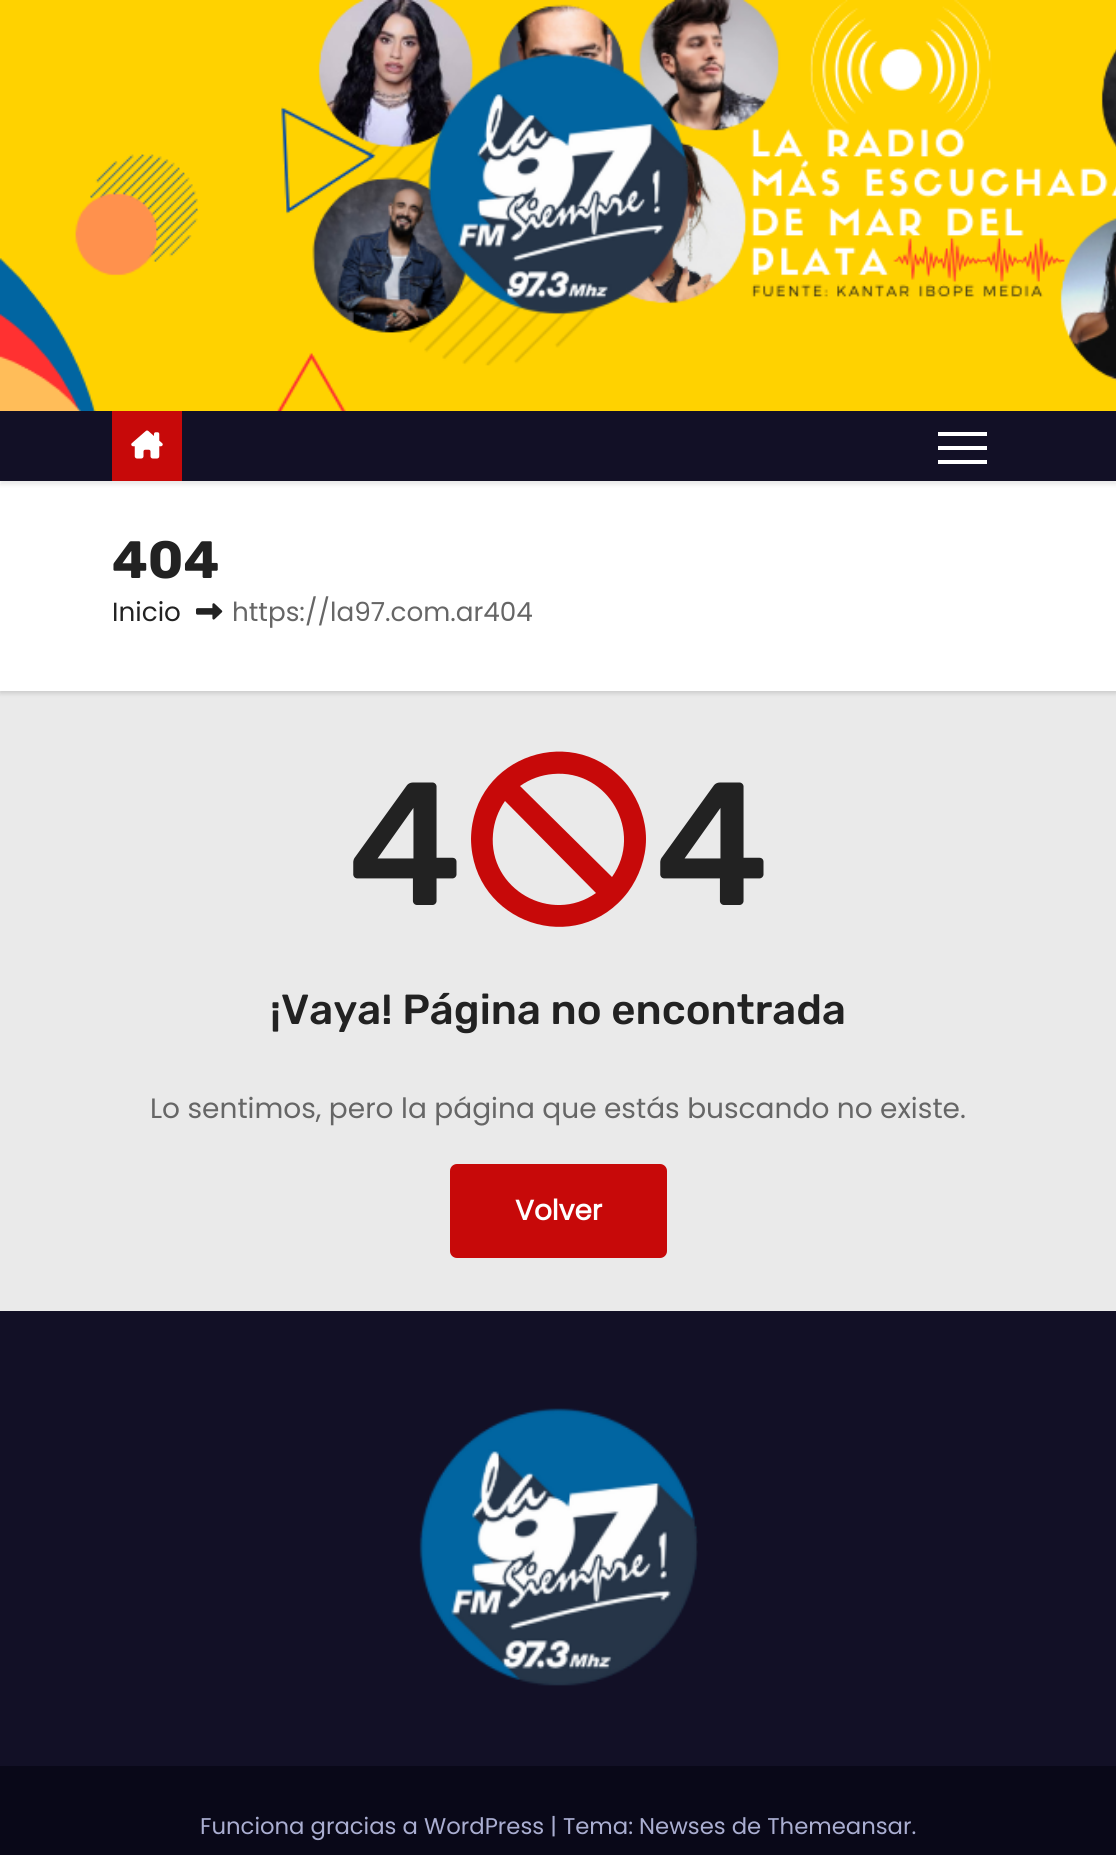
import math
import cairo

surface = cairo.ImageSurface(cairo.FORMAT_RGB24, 1116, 1855)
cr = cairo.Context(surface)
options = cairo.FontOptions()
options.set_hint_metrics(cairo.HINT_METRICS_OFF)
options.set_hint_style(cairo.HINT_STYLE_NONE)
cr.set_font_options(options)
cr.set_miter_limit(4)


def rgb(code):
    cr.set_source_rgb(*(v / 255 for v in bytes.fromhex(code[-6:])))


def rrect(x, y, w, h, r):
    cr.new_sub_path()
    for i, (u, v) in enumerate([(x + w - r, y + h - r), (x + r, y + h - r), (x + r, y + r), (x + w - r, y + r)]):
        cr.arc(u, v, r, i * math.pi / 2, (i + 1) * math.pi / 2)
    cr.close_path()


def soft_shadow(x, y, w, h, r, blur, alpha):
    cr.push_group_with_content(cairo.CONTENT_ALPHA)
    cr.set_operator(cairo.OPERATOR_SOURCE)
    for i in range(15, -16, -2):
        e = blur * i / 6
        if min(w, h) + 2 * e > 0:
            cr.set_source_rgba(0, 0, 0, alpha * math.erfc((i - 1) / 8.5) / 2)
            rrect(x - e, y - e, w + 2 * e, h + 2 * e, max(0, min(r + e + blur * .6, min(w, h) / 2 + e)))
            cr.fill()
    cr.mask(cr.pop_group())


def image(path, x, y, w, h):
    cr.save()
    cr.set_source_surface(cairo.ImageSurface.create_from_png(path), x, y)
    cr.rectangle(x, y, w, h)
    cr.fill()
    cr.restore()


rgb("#eaeaea")
cr.paint()
image("img/1.png", 0, 0, 1116, 411)
image("img/2.png", 428, 53, 262, 262)
rgb("#000000")
soft_shadow(0, 483, 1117, 210, 0, 2.5, 0.15)
rgb("#ffffff")
cr.rectangle(0, 481, 1116, 210)
cr.fill()
rgb("#000000")
soft_shadow(0, 415, 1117, 70, 0, 2, 0.08)
rgb("#121026")
cr.rectangle(0, 411, 1116, 70)
cr.fill()
rgb("#c70909")
cr.rectangle(112, 411, 70, 70)
cr.fill()
image("img/3.png", 131, 430, 32, 29)
for x, y, w, h, color in [
    (938, 432, 49, 4, "#ffffff"),
    (938, 446, 49, 4, "#ffffff"),
    (938, 460, 49, 4, "#ffffff"),
]:
    rgb(color)
    cr.rectangle(x, y, w, h)
    cr.fill()
image("img/4.png", 196, 603, 27, 17)
rgb("#c70909")
cr.new_path()
cr.move_to(596, 893)
cr.line_to(505, 801)
cr.curve_to(498, 811, 494, 822, 493, 834)
cr.curve_to(488, 889, 551, 925, 596, 893)
cr.close_path()
cr.move_to(612, 877)
cr.curve_to(644, 832, 608, 769, 553, 774)
cr.curve_to(541, 775, 530, 779, 520, 786)
cr.close_path()
cr.move_to(471, 839)
cr.curve_to(472, 755, 577, 720, 628, 786)
cr.curve_to(639, 801, 646, 820, 646, 839)
cr.curve_to(646, 858, 639, 877, 628, 892)
cr.curve_to(577, 959, 472, 923, 471, 839)
cr.close_path()
cr.fill()
rrect(452, 1166, 213, 90, 5)
cr.fill_preserve()
cr.set_line_width(4)
cr.stroke()
rgb("#121026")
cr.rectangle(0, 1311, 1116, 455)
cr.fill()
image("img/5.png", 419, 1408, 279, 278)
rgb("#090818")
cr.rectangle(0, 1766, 1116, 89)
cr.fill()
cr.select_font_face("Rubik", cairo.FONT_SLANT_NORMAL, cairo.FONT_WEIGHT_BOLD)
cr.set_font_size(52.5)
rgb("#222222")
cr.move_to(112, 578)
cr.show_text("404")
cr.select_font_face("Poppins")
cr.set_font_size(26.25)
cr.move_to(112, 621)
cr.show_text("Inicio")
rgb("#666666")
cr.move_to(232, 621)
cr.show_text("https://la97.com.ar404")
cr.select_font_face("Rubik Medium")
cr.set_font_size(175)
rgb("#222222")
cr.move_to(348, 905)
cr.show_text("4")
cr.move_to(655, 905)
cr.show_text("4")
cr.set_font_size(42)
cr.move_to(270, 1024)
cr.show_text("¡Vaya! Página no encontrada")
cr.select_font_face("Poppins")
cr.set_font_size(28)
rgb("#666666")
cr.move_to(150, 1118)
cr.show_text("Lo sentimos, pero la página que estás buscando no existe.")
cr.select_font_face("Poppins", cairo.FONT_SLANT_NORMAL, cairo.FONT_WEIGHT_BOLD)
rgb("#ffffff")
cr.move_to(515, 1220)
cr.show_text("Volver")
cr.select_font_face("Poppins")
cr.set_font_size(22.75)
rgb("#aaaed1")
cr.move_to(200, 1834)
cr.show_text("Funciona gracias a WordPress | Tema: Newses de Themeansar.")
surface.write_to_png("page.png")
